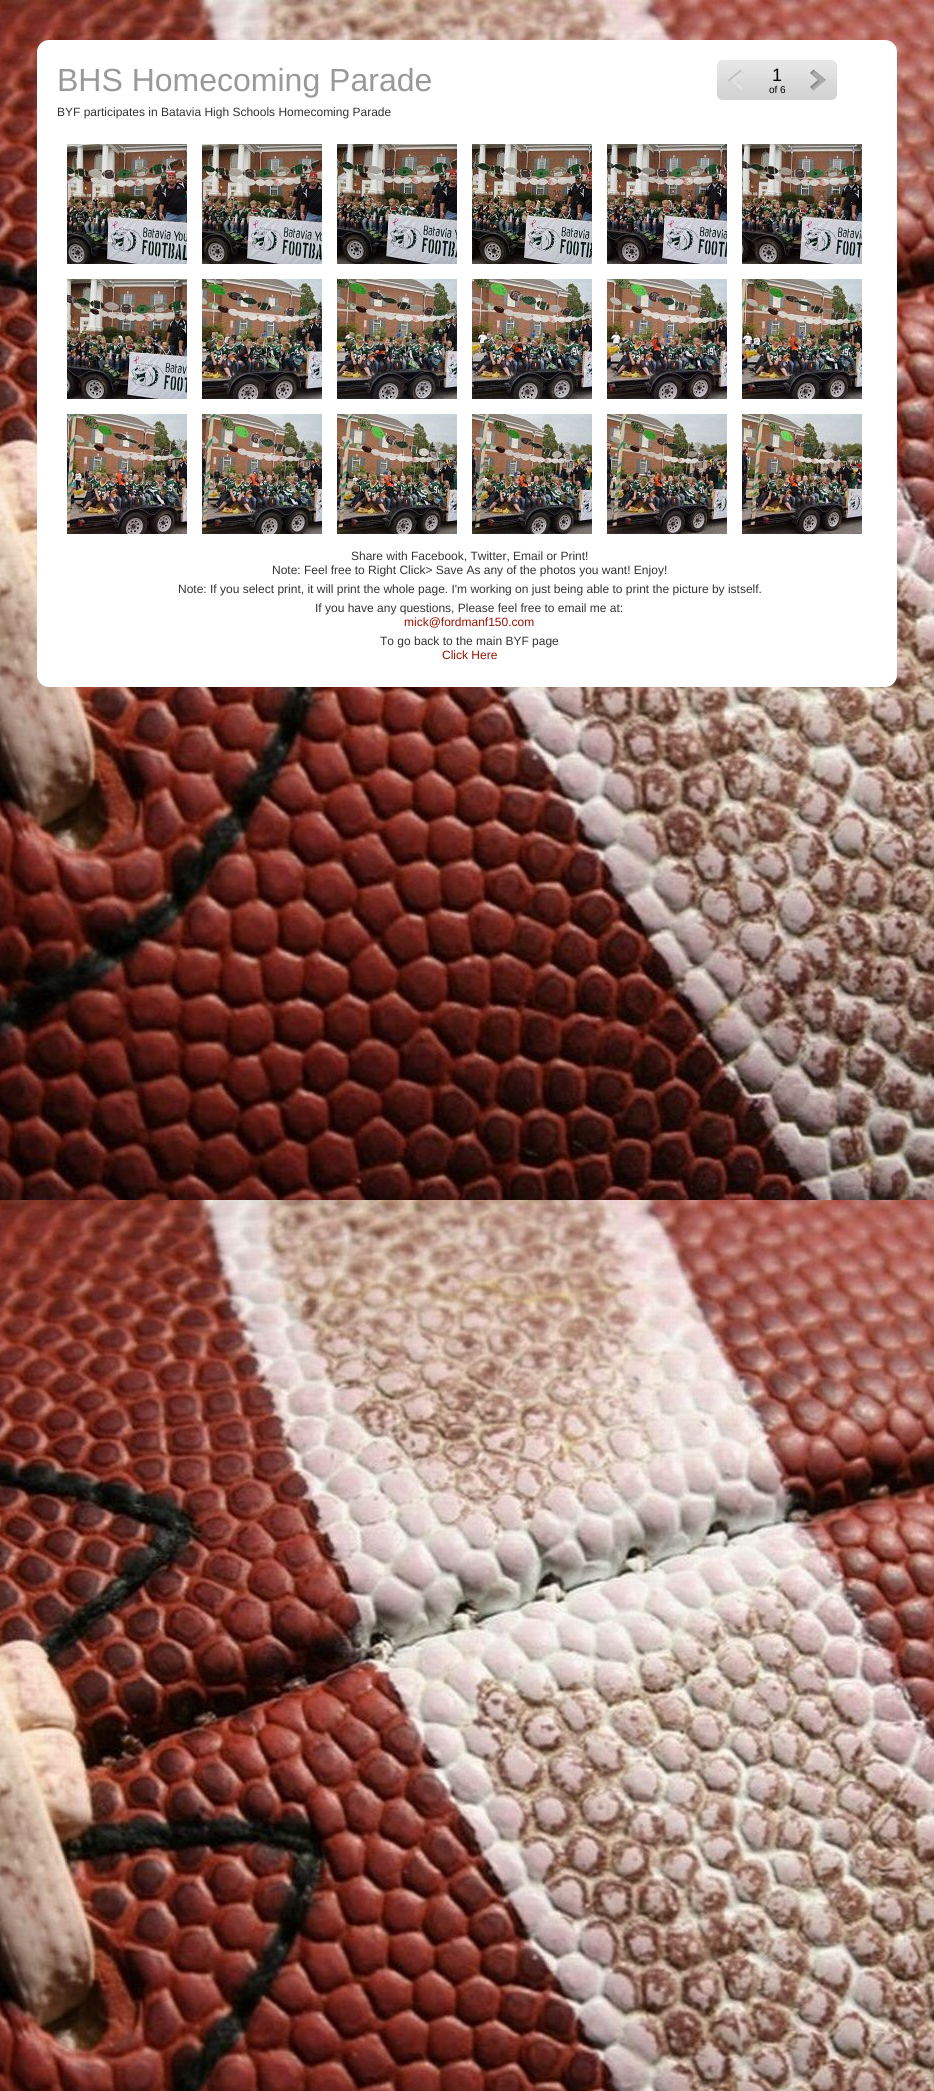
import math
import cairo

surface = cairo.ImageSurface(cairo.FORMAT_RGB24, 934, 2091)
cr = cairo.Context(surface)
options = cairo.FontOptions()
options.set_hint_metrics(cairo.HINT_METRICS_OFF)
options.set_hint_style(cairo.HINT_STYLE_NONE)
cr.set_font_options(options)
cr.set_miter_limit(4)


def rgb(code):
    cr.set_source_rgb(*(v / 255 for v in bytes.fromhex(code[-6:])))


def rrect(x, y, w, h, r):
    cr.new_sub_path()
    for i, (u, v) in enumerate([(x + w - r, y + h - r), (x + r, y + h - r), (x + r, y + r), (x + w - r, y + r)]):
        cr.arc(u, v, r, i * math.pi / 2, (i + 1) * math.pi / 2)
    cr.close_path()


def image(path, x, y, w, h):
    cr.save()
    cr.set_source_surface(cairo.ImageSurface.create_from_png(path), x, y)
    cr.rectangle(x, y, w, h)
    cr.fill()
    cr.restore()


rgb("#ffffff")
cr.paint()
image("img/1.png", 0, 0, 934, 2091)
rgb("#ffffff")
rrect(37, 40, 860, 647, 12)
cr.fill()
image("img/2.png", 717, 60, 40, 40)
image("img/3.png", 757, 60, 40, 40)
image("img/4.png", 797, 60, 40, 40)
image("img/5.png", 67, 144, 120, 120)
image("img/6.png", 202, 144, 120, 120)
image("img/7.png", 337, 144, 120, 120)
image("img/8.png", 472, 144, 120, 120)
image("img/9.png", 607, 144, 120, 120)
image("img/10.png", 742, 144, 120, 120)
image("img/11.png", 67, 279, 120, 120)
image("img/12.png", 202, 279, 120, 120)
image("img/13.png", 337, 279, 120, 120)
image("img/14.png", 472, 279, 120, 120)
image("img/15.png", 607, 279, 120, 120)
image("img/16.png", 742, 279, 120, 120)
image("img/17.png", 67, 414, 120, 120)
image("img/18.png", 202, 414, 120, 120)
image("img/19.png", 337, 414, 120, 120)
image("img/20.png", 472, 414, 120, 120)
image("img/21.png", 607, 414, 120, 120)
image("img/22.png", 742, 414, 120, 120)
cr.select_font_face("Liberation Sans")
cr.set_font_size(32)
rgb("#999999")
cr.move_to(57, 91)
cr.show_text("BHS Homecoming Parade")
cr.set_font_size(18)
rgb("#000000")
cr.move_to(772, 81)
cr.show_text("1")
cr.set_font_size(10)
cr.move_to(769, 93)
cr.show_text("of 6")
cr.set_font_size(12)
rgb("#333333")
for x, y, s in [
    (57, 116, "BYF participates in Batavia High Schools Homecoming Parade"),
    (351, 560, "Share with Facebook, Twitter, Email or Print!"),
    (272, 574, "Note: Feel free to Right Click> Save As any of the photos you want! Enjoy!"),
    (178, 593, "Note: If you select print, it will print the whole page. I'm working on just being able to print the picture by istself."),
    (315, 612, "If you have any questions, Please feel free to email me at:"),
]:
    cr.move_to(x, y)
    cr.show_text(s)
rgb("#991100")
cr.move_to(404, 626)
cr.show_text("mick@fordmanf150.com")
rgb("#333333")
cr.move_to(380, 645)
cr.show_text("To go back to the main BYF page")
rgb("#991100")
cr.move_to(442, 659)
cr.show_text("Click Here")
surface.write_to_png("page.png")
